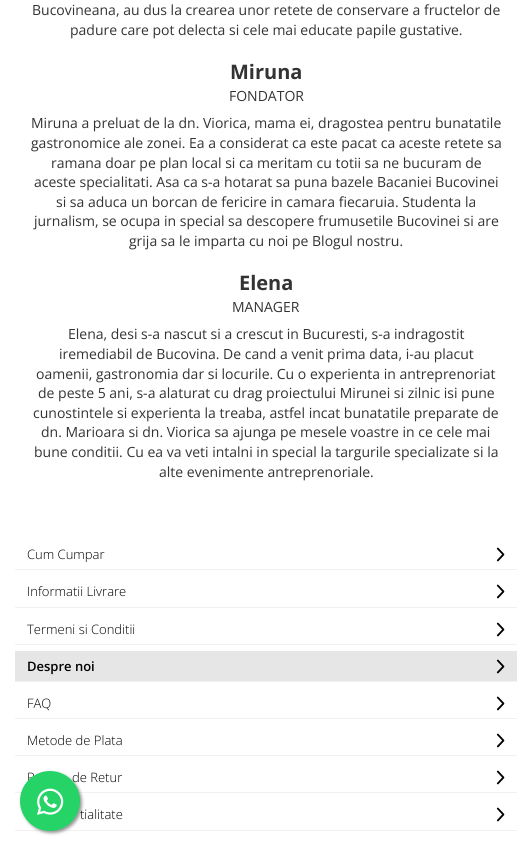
import math
import cairo

surface = cairo.ImageSurface(cairo.FORMAT_RGB24, 532, 851)
cr = cairo.Context(surface)
options = cairo.FontOptions()
options.set_hint_metrics(cairo.HINT_METRICS_OFF)
options.set_hint_style(cairo.HINT_STYLE_NONE)
cr.set_font_options(options)
cr.set_miter_limit(4)


def rgb(code):
    cr.set_source_rgb(*(v / 255 for v in bytes.fromhex(code[-6:])))


def rrect(x, y, w, h, r):
    cr.new_sub_path()
    for i, (u, v) in enumerate([(x + w - r, y + h - r), (x + r, y + h - r), (x + r, y + r), (x + w - r, y + r)]):
        cr.arc(u, v, r, i * math.pi / 2, (i + 1) * math.pi / 2)
    cr.close_path()


def soft_shadow(x, y, w, h, r, blur, alpha):
    cr.push_group_with_content(cairo.CONTENT_ALPHA)
    cr.set_operator(cairo.OPERATOR_SOURCE)
    for i in range(15, -16, -2):
        e = blur * i / 6
        if min(w, h) + 2 * e > 0:
            cr.set_source_rgba(0, 0, 0, alpha * math.erfc((i - 1) / 8.5) / 2)
            rrect(x - e, y - e, w + 2 * e, h + 2 * e, max(0, min(r + e + blur * .6, min(w, h) / 2 + e)))
            cr.fill()
    cr.mask(cr.pop_group())


def image(path, x, y, w, h):
    cr.save()
    cr.set_source_surface(cairo.ImageSurface.create_from_png(path), x, y)
    cr.rectangle(x, y, w, h)
    cr.fill()
    cr.restore()


rgb("#ffffff")
cr.paint()
rgb("#f1f1f1")
cr.rectangle(15, 569, 502, 1)
cr.fill()
image("img/1.png", 496, 547, 9, 15)
cr.rectangle(15, 607, 502, 1)
cr.fill()
image("img/1.png", 496, 584, 9, 15)
cr.rectangle(15, 644, 502, 1)
cr.fill()
image("img/1.png", 496, 622, 9, 15)
rgb("#e6e6e6")
cr.rectangle(15, 651, 502, 30)
cr.fill()
rgb("#f1f1f1")
cr.rectangle(15, 681, 502, 1)
cr.fill()
image("img/2.png", 496, 659, 9, 15)
cr.rectangle(15, 718, 502, 1)
cr.fill()
image("img/1.png", 496, 696, 9, 15)
cr.rectangle(15, 755, 502, 1)
cr.fill()
image("img/1.png", 496, 733, 9, 15)
cr.rectangle(15, 792, 502, 1)
cr.fill()
image("img/1.png", 496, 770, 9, 15)
cr.rectangle(15, 830, 502, 1)
cr.fill()
image("img/1.png", 496, 807, 9, 15)
rgb("#999999")
soft_shadow(22, 773, 60, 60, 30, 1.5, 1)
cr.select_font_face("Open Sans")
cr.set_font_size(14)
rgb("#333333")
cr.move_to(32, 15)
cr.show_text("Bucovineana, au dus la crearea unor retete de conservare a fructelor de")
cr.move_to(70, 35)
cr.show_text("padure care pot delecta si cele mai educate papile gustative.")
cr.select_font_face("Open Sans", cairo.FONT_SLANT_NORMAL, cairo.FONT_WEIGHT_BOLD)
cr.set_font_size(20)
cr.move_to(230, 79)
cr.show_text("Miruna")
cr.select_font_face("Open Sans")
cr.set_font_size(14)
for x, y, s in [
    (229, 101, "FONDATOR"),
    (31, 128, "Miruna a preluat de la dn. Viorica, mama ei, dragostea pentru bunatatile"),
    (31, 148, "gastronomice ale zonei. Ea a considerat ca este pacat ca aceste retete sa"),
    (51, 168, "ramana doar pe plan local si ca meritam cu totii sa ne bucuram de"),
    (34, 187, "aceste specialitati. Asa ca s-a hotarat sa puna bazele Bacaniei Bucovinei"),
    (56, 207, "si sa aduca un borcan de fericire in camara fiecaruia. Studenta la"),
    (34, 226, "jurnalism, se ocupa in special sa descopere frumusetile Bucovinei si are"),
    (129, 246, "grija sa le imparta cu noi pe Blogul nostru."),
]:
    cr.move_to(x, y)
    cr.show_text(s)
cr.select_font_face("Open Sans", cairo.FONT_SLANT_NORMAL, cairo.FONT_WEIGHT_BOLD)
cr.set_font_size(20)
cr.move_to(239, 290)
cr.show_text("Elena")
cr.select_font_face("Open Sans")
cr.set_font_size(14)
for x, y, s in [
    (232, 312, "MANAGER"),
    (68, 339, "Elena, desi s-a nascut si a crescut in Bucuresti, s-a indragostit"),
    (59, 359, "iremediabil de Bucovina. De cand a venit prima data, i-au placut"),
    (36, 379, "oamenii, gastronomia dar si locurile. Cu o experienta in antreprenoriat"),
    (38, 398, "de peste 5 ani, s-a alaturat cu drag proiectului Mirunei si zilnic isi pune"),
    (33, 418, "cunostintele si experienta la treaba, astfel incat bunatatile preparate de"),
    (41, 437, "dn. Marioara si dn. Viorica sa ajunga pe mesele voastre in ce cele mai"),
    (34, 457, "bune conditii. Cu ea va veti intalni in special la targurile specializate si la"),
    (159, 477, "alte evenimente antreprenoriale."),
]:
    cr.move_to(x, y)
    cr.show_text(s)
cr.select_font_face("Open Sans Light")
cr.set_font_size(13)
rgb("#000000")
for x, y, s in [
    (27, 559, "Cum Cumpar"),
    (27, 596, "Informatii Livrare"),
    (27, 634, "Termeni si Conditii"),
]:
    cr.move_to(x, y)
    cr.show_text(s)
cr.select_font_face("Open Sans SemiBold")
cr.move_to(27, 671)
cr.show_text("Despre noi")
cr.select_font_face("Open Sans Light")
for x, y, s in [
    (27, 708, "FAQ"),
    (27, 745, "Metode de Plata"),
    (27, 782, "P"),
    (72, 782, "de Retur"),
    (80, 819, "tialitate"),
]:
    cr.move_to(x, y)
    cr.show_text(s)
rgb("#25d366")
cr.new_path()
cr.arc(50, 801, 30, 0, 2 * math.pi)
cr.fill()
image("img/3.png", 37, 788, 27, 27)
surface.write_to_png("page.png")
